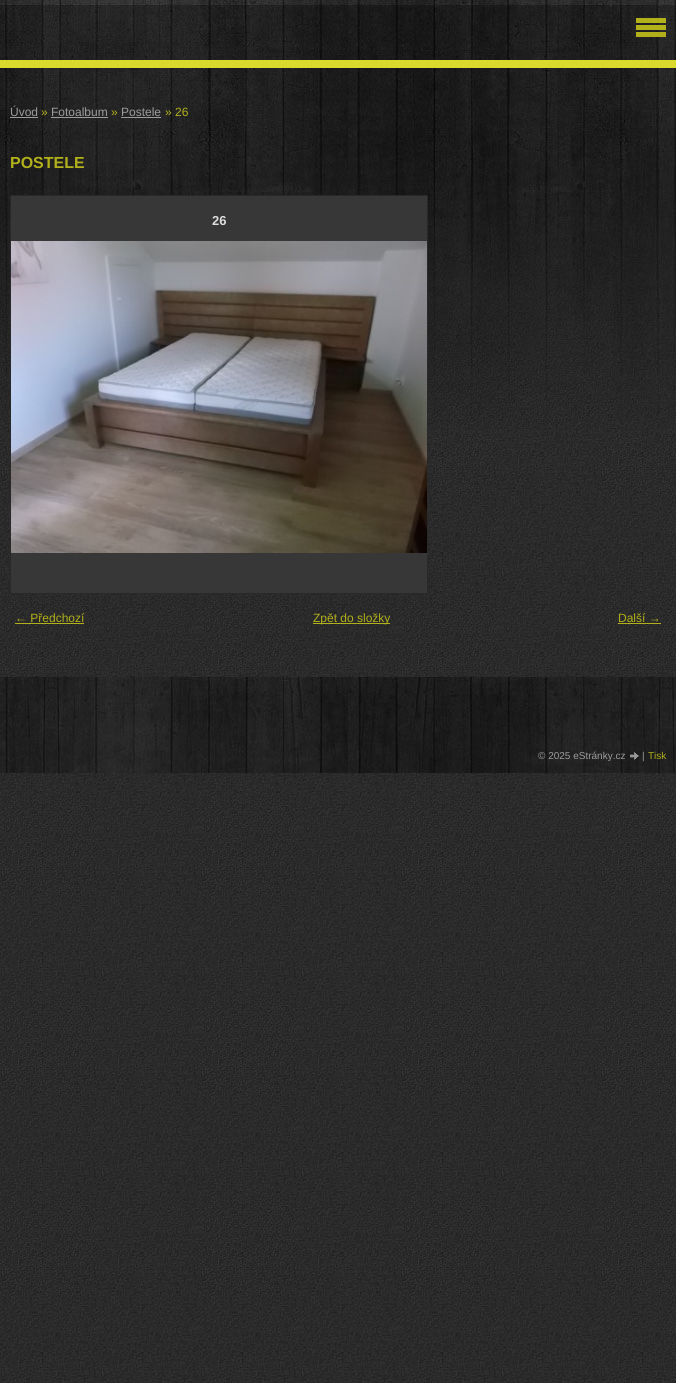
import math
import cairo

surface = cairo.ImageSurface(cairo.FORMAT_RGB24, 676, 1383)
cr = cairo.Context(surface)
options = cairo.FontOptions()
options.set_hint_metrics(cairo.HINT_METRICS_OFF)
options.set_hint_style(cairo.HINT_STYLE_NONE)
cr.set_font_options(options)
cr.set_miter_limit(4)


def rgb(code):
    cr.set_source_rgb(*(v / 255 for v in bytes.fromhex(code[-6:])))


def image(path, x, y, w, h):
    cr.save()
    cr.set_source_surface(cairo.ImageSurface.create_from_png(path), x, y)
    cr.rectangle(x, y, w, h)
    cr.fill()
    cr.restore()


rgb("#ffffff")
cr.paint()
image("img/1.png", 0, 430, 676, 953)
image("img/2.png", 0, 0, 676, 430)
image("img/3.png", 0, 674, 676, 99)
for x, y, w, h, color in [
    (636, 18, 30, 5, "#b2b11b"),
    (636, 25, 30, 5, "#b2b11b"),
    (636, 32, 30, 5, "#b2b11b"),
    (0, 60, 676, 8, "#d9d92e"),
    (10, 117, 28, 1, "#9c9c9c"),
    (51, 117, 57, 1, "#9c9c9c"),
    (121, 117, 40, 1, "#9c9c9c"),
]:
    rgb(color)
    cr.rectangle(x, y, w, h)
    cr.fill()
rgb("#373737")
cr.rectangle(10.5, 195.5, 417, 398)
cr.fill_preserve()
rgb("#292929")
cr.set_line_width(1)
cr.stroke()
image("img/4.png", 11, 241, 416, 312)
for x, y, w, h, color in [
    (15, 623, 69, 1, "#b2b11b"),
    (313, 623, 77, 1, "#b2b11b"),
    (618, 623, 43, 1, "#b2b11b"),
]:
    rgb(color)
    cr.rectangle(x, y, w, h)
    cr.fill()
image("img/5.png", 630, 752, 9, 8)
cr.select_font_face("Liberation Sans")
cr.set_font_size(12)
rgb("#9c9c9c")
cr.move_to(10, 116)
cr.show_text("Úvod")
rgb("#b2b11b")
cr.move_to(41, 116)
cr.show_text("»")
rgb("#9c9c9c")
cr.move_to(51, 116)
cr.show_text("Fotoalbum")
rgb("#b2b11b")
cr.move_to(111, 116)
cr.show_text("»")
rgb("#9c9c9c")
cr.move_to(121, 116)
cr.show_text("Postele")
rgb("#b2b11b")
cr.move_to(165, 116)
cr.show_text("» 26")
cr.select_font_face("Liberation Sans", cairo.FONT_SLANT_NORMAL, cairo.FONT_WEIGHT_BOLD)
cr.set_font_size(16)
cr.move_to(10, 168)
cr.show_text("POSTELE")
cr.set_font_size(13)
rgb("#dddddd")
cr.move_to(212, 225)
cr.show_text("26")
cr.select_font_face("Liberation Sans")
cr.set_font_size(12)
rgb("#b2b11b")
for x, y, s in [
    (15, 622, "← Předchozí"),
    (313, 622, "Zpět do složky"),
    (618, 622, "Další →"),
]:
    cr.move_to(x, y)
    cr.show_text(s)
cr.set_font_size(10)
rgb("#9c9c9c")
cr.move_to(538, 759)
cr.show_text("© 2025 eStránky.cz")
cr.move_to(642, 759)
cr.show_text("|")
rgb("#b2b11b")
cr.move_to(648, 759)
cr.show_text("Tisk")
surface.write_to_png("page.png")
